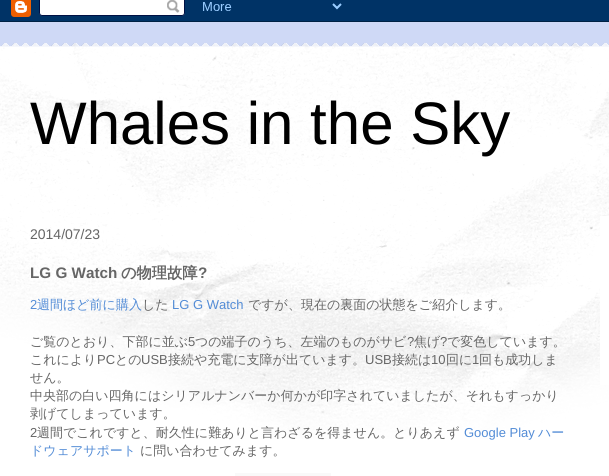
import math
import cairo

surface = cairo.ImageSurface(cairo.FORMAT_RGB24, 609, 476)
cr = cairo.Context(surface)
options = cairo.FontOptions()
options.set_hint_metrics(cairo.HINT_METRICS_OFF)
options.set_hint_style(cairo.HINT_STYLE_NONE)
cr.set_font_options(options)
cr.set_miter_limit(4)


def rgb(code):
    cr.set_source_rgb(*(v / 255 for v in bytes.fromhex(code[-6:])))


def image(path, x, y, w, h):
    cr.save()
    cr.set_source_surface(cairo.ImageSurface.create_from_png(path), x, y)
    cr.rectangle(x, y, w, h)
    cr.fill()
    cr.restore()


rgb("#cfd9f6")
cr.paint()
image("img/1.png", 0, 0, 609, 22)
image("img/2.png", 0, 43, 609, 4)
rgb("#ffffff")
cr.rectangle(0, 47, 609, 429)
cr.fill()
image("img/3.png", 0, 47, 609, 392)
rgb("#f9f9f9")
cr.rectangle(235, 473, 96, 3)
cr.fill()
rgb("#ffffff")
cr.rectangle(600, 216, 9, 169)
cr.fill()
cr.select_font_face("Liberation Sans")
cr.set_font_size(60)
rgb("#000000")
cr.move_to(30, 144)
cr.show_text("Whales in the Sky")
cr.set_font_size(14)
rgb("#666666")
cr.move_to(30, 239)
cr.show_text("2014/07/23")
cr.select_font_face("Liberation Sans", cairo.FONT_SLANT_NORMAL, cairo.FONT_WEIGHT_BOLD)
cr.set_font_size(15.25)
cr.move_to(30, 278)
cr.show_text("LG G Watch")
cr.select_font_face("WenQuanYi Zen Hei", cairo.FONT_SLANT_NORMAL, cairo.FONT_WEIGHT_BOLD)
cr.move_to(121, 278)
cr.show_text("の物理故障")
cr.select_font_face("Liberation Sans", cairo.FONT_SLANT_NORMAL, cairo.FONT_WEIGHT_BOLD)
cr.move_to(198, 278)
cr.show_text("?")
cr.select_font_face("Liberation Sans")
cr.set_font_size(13)
rgb("#538cd6")
cr.move_to(30, 309)
cr.show_text("2")
cr.select_font_face("WenQuanYi Zen Hei Medium")
cr.move_to(37, 309)
cr.show_text("週間ほど前に購入")
rgb("#666666")
cr.move_to(142, 309)
cr.show_text("した")
cr.select_font_face("Liberation Sans")
rgb("#538cd6")
cr.move_to(172, 309)
cr.show_text("LG G Watch")
cr.select_font_face("WenQuanYi Zen Hei Medium")
rgb("#666666")
cr.move_to(248, 309)
cr.show_text("ですが、現在の裏面の状態をご紹介します。")
cr.move_to(30, 346)
cr.show_text("ご覧のとおり、下部に並ぶ")
cr.select_font_face("Liberation Sans")
cr.move_to(188, 346)
cr.show_text("5")
cr.select_font_face("WenQuanYi Zen Hei Medium")
cr.move_to(195, 346)
cr.show_text("つの端子のうち、左端のものがサビ")
cr.select_font_face("Liberation Sans")
cr.move_to(407, 346)
cr.show_text("?")
cr.select_font_face("WenQuanYi Zen Hei Medium")
cr.move_to(414, 346)
cr.show_text("焦げ")
cr.select_font_face("Liberation Sans")
cr.move_to(440, 346)
cr.show_text("?")
cr.select_font_face("WenQuanYi Zen Hei Medium")
cr.move_to(447, 346)
cr.show_text("で変色しています。")
cr.move_to(30, 364)
cr.show_text("これにより")
cr.select_font_face("Liberation Sans")
cr.move_to(97, 364)
cr.show_text("PC")
cr.select_font_face("WenQuanYi Zen Hei Medium")
cr.move_to(115, 364)
cr.show_text("との")
cr.select_font_face("Liberation Sans")
cr.move_to(141, 364)
cr.show_text("USB")
cr.select_font_face("WenQuanYi Zen Hei Medium")
cr.move_to(168, 364)
cr.show_text("接続や充電に支障が出ています。")
cr.select_font_face("Liberation Sans")
cr.move_to(365, 364)
cr.show_text("USB")
cr.select_font_face("WenQuanYi Zen Hei Medium")
cr.move_to(392, 364)
cr.show_text("接続は")
cr.select_font_face("Liberation Sans")
cr.move_to(431, 364)
cr.show_text("10")
cr.select_font_face("WenQuanYi Zen Hei Medium")
cr.move_to(446, 364)
cr.show_text("回に")
cr.select_font_face("Liberation Sans")
cr.move_to(472, 364)
cr.show_text("1")
cr.select_font_face("WenQuanYi Zen Hei Medium")
for x, y, s in [
    (479, 364, "回も成功しま"),
    (30, 382, "せん。"),
    (30, 400, "中央部の白い四角にはシリアルナンバーか何かが印字されていましたが、それもすっかり"),
    (30, 418, "剥げてしまっています。"),
]:
    cr.move_to(x, y)
    cr.show_text(s)
cr.select_font_face("Liberation Sans")
cr.move_to(30, 437)
cr.show_text("2")
cr.select_font_face("WenQuanYi Zen Hei Medium")
cr.move_to(37, 437)
cr.show_text("週間でこれですと、耐久性に難ありと言わざるを得ません。とりあえず")
cr.select_font_face("Liberation Sans")
rgb("#538cd6")
cr.move_to(464, 437)
cr.show_text("Google Play")
cr.select_font_face("WenQuanYi Zen Hei Medium")
cr.move_to(538, 437)
cr.show_text("ハー")
cr.move_to(30, 455)
cr.show_text("ドウェアサポート")
rgb("#666666")
cr.move_to(140, 455)
cr.show_text("に問い合わせてみます。")
surface.write_to_png("page.png")
